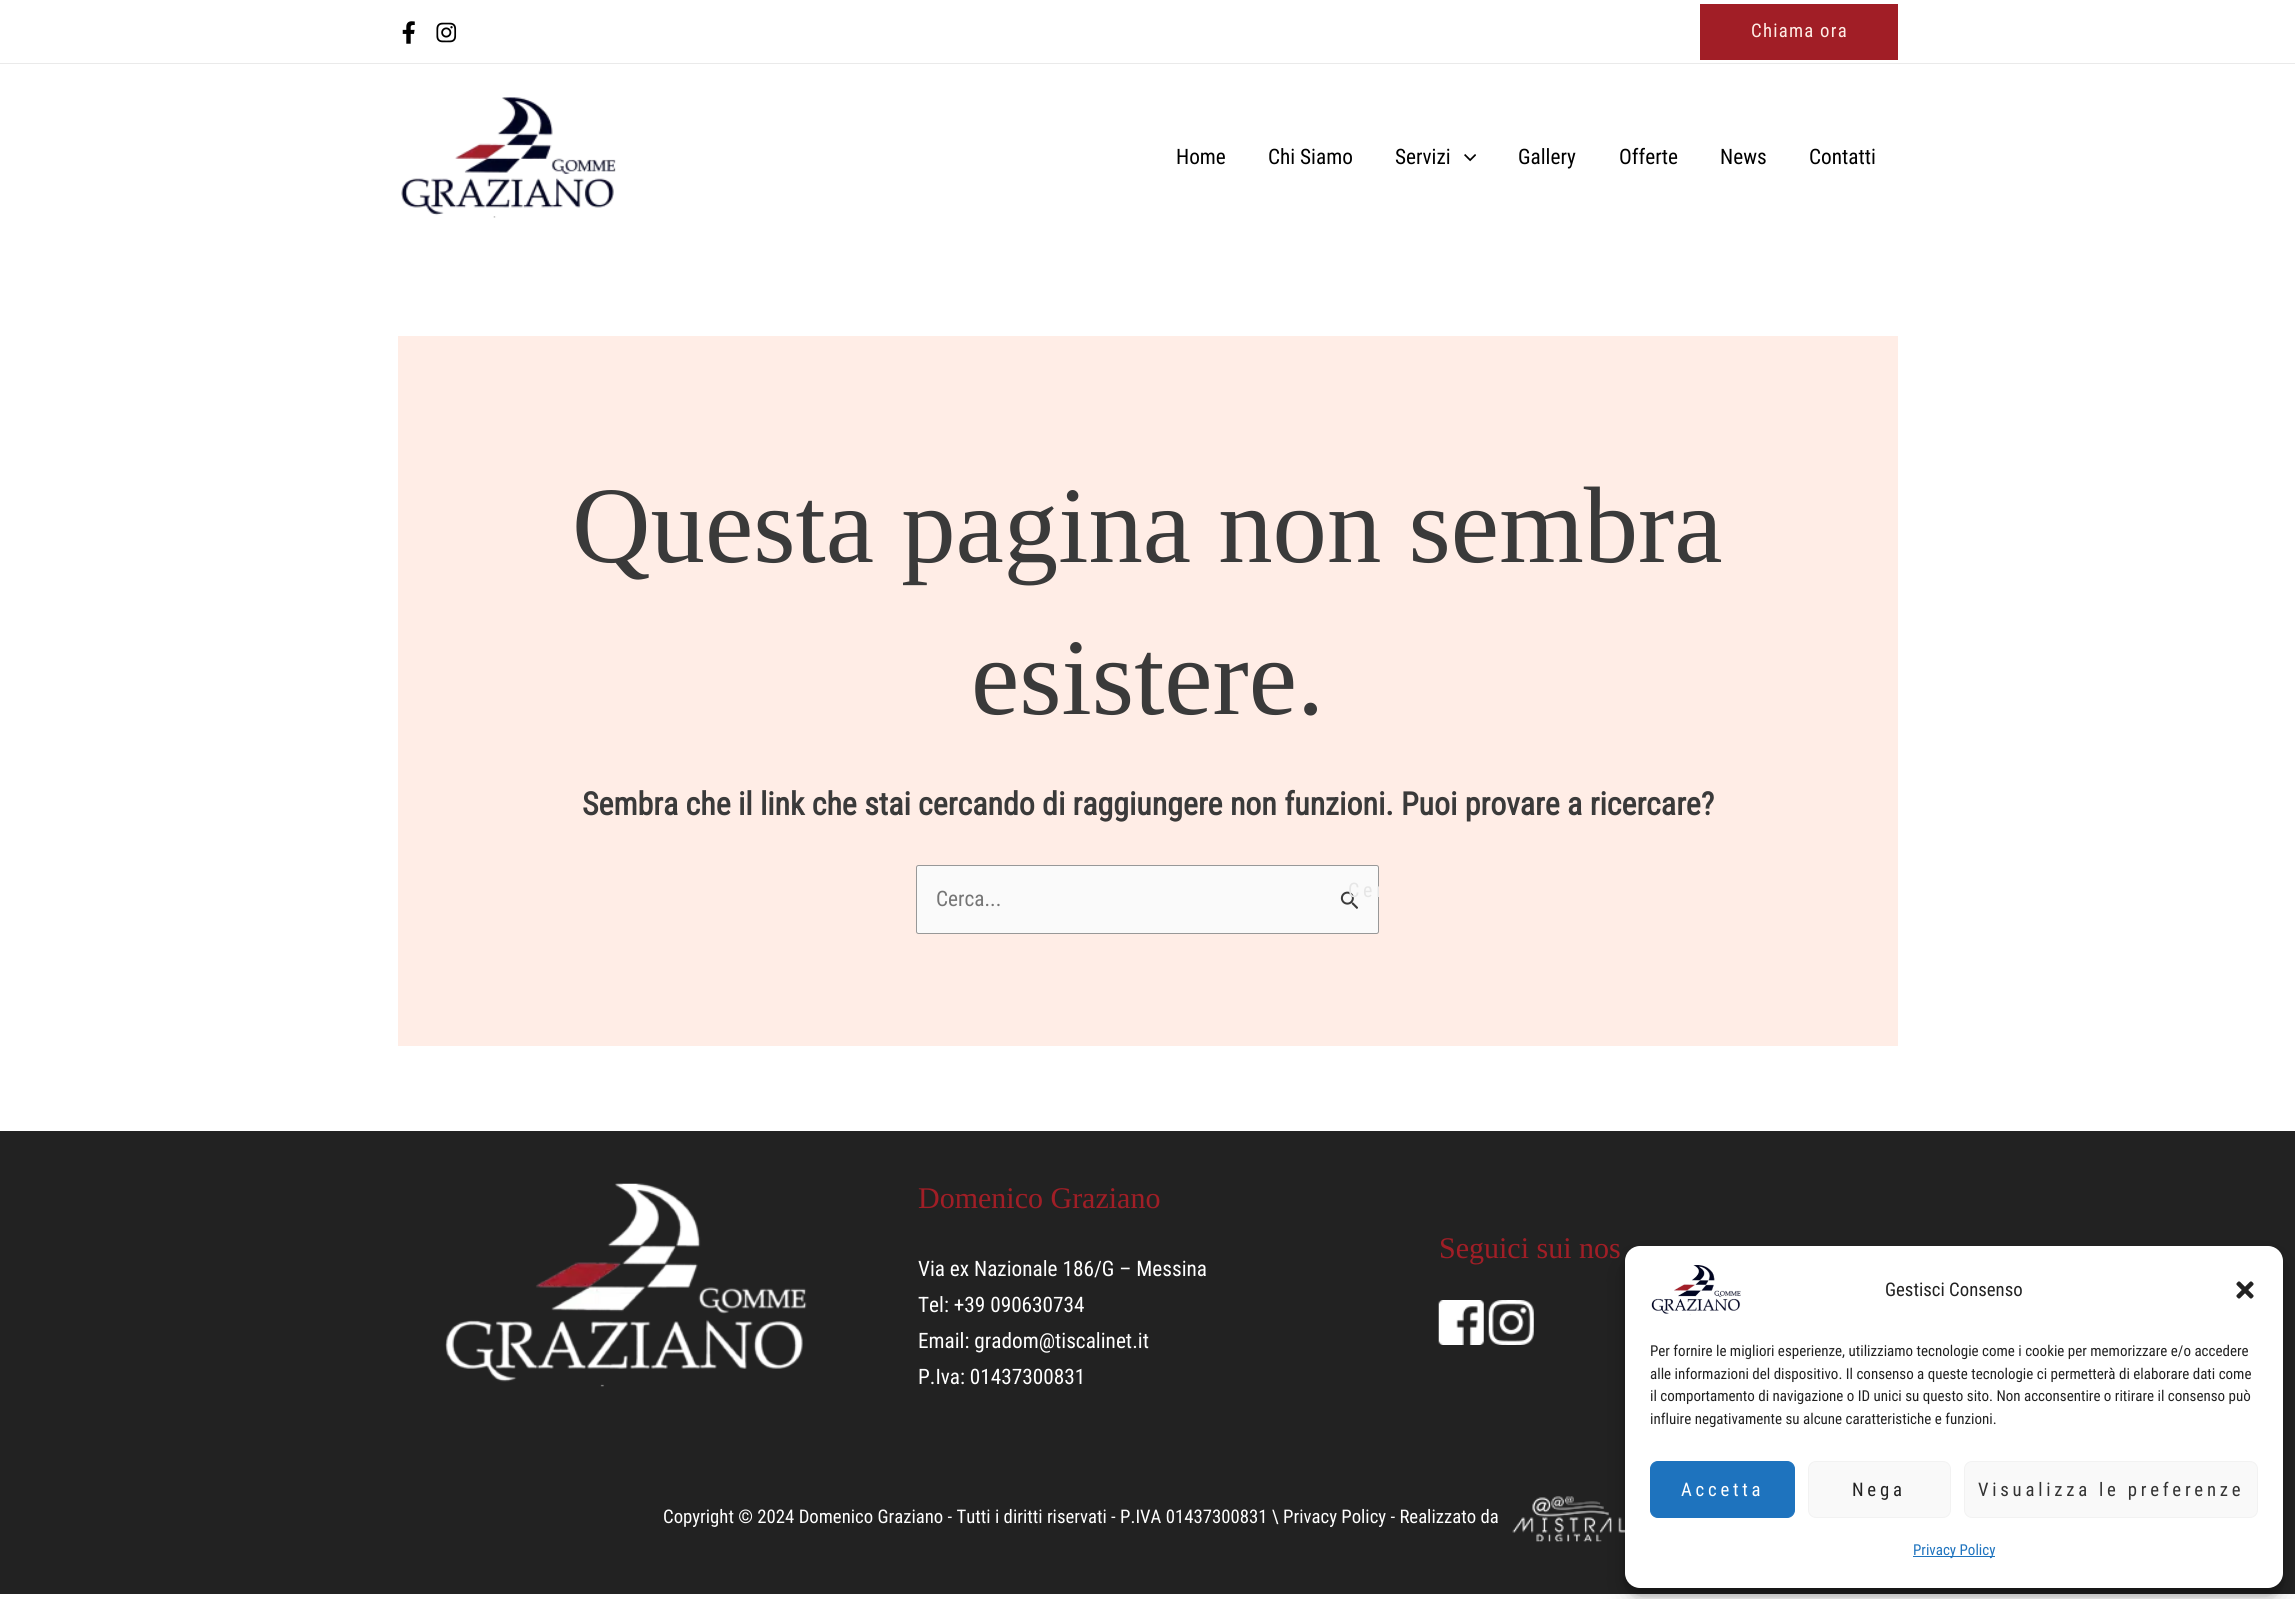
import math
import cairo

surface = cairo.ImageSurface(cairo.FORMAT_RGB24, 2295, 1599)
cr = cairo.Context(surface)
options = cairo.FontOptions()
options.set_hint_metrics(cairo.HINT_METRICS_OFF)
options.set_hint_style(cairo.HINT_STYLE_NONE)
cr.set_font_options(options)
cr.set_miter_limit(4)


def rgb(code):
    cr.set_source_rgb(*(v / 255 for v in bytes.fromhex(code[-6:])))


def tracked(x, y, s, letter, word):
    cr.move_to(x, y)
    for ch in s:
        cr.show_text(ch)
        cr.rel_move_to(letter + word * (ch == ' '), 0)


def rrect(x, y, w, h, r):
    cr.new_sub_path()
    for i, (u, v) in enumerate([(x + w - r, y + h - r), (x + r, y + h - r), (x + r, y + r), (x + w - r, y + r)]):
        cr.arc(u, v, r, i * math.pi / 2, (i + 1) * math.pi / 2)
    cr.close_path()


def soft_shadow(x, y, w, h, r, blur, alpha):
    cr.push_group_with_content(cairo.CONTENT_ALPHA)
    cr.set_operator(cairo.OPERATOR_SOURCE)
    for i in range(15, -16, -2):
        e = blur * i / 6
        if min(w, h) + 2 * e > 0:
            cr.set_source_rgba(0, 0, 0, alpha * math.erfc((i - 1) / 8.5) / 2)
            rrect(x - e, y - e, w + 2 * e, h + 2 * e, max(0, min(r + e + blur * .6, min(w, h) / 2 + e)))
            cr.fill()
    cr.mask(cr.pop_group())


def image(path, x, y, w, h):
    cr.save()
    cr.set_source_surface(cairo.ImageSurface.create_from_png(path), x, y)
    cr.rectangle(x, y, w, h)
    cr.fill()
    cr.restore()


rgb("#ffffff")
cr.paint()
rgb("#eaeaea")
cr.rectangle(0, 63, 2295, 1)
cr.fill()
image("img/1.png", 402, 21, 13, 23)
image("img/2.png", 436, 22, 21, 21)
rgb("#a11e26")
cr.rectangle(1700, 4, 198, 56)
cr.fill()
image("img/3.png", 401, 97, 215, 121)
image("img/4.png", 1464, 154, 12, 8)
rgb("#ffede6")
cr.rectangle(398, 336, 1500, 710)
cr.fill()
rgb("#fafafa")
rrect(916.5, 865.5, 462, 68, 2)
cr.fill_preserve()
rgb("#989898")
cr.set_line_width(1)
cr.stroke()
image("img/5.png", 1340, 891, 18, 18)
rgb("#222222")
cr.rectangle(0, 1131, 2295, 308)
cr.fill()
image("img/6.png", 445, 1183, 362, 204)
image("img/7.png", 1438, 1300, 46, 45)
image("img/8.png", 1488, 1300, 46, 45)
cr.rectangle(0, 1439, 2295, 155)
cr.fill()
image("img/9.png", 1512, 1496, 113, 46)
rgb("#000000")
soft_shadow(1625, 1254, 658, 341, 15, 4, 0.23)
soft_shadow(1625, 1259, 658, 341, 15, 12.5, 0.19)
rgb("#ffffff")
rrect(1625, 1246, 658, 342, 15)
cr.fill()
image("img/10.png", 1651, 1265, 90, 50)
image("img/11.png", 2236, 1281, 18, 18)
rgb("#1e73be")
rrect(1650.5, 1461.5, 144, 56, 7.5)
cr.fill_preserve()
cr.stroke()
rgb("#f9f9f9")
rrect(1808.5, 1461.5, 142, 56, 7.5)
cr.fill_preserve()
rgb("#f2f2f2")
cr.stroke()
rgb("#f9f9f9")
rrect(1964.5, 1461.5, 293, 56, 7.5)
cr.fill_preserve()
rgb("#f2f2f2")
cr.stroke()
rgb("#1e73be")
cr.rectangle(1913, 1556, 82, 1)
cr.fill()
cr.select_font_face("Roboto Condensed")
cr.set_font_size(18.75)
rgb("#ffede6")
tracked(1751, 37, "Chiama ora", 1.25, 0)
cr.set_font_size(21.25)
rgb("#000000")
for x, y, s in [
    (1176, 164, "Home"),
    (1268, 164, "Chi Siamo"),
    (1395, 164, "Servizi"),
    (1518, 164, "Gallery"),
    (1619, 164, "Offerte"),
    (1720, 164, "News"),
    (1809, 164, "Contatti"),
]:
    cr.move_to(x, y)
    cr.show_text(s)
cr.select_font_face("Liberation Serif")
cr.set_font_size(108.75)
rgb("#3a3a3a")
cr.move_to(572, 562)
cr.show_text("Questa pagina non sembra")
cr.move_to(971, 714)
cr.show_text("esistere.")
cr.select_font_face("Roboto Condensed", cairo.FONT_SLANT_NORMAL, cairo.FONT_WEIGHT_BOLD)
cr.set_font_size(31.9)
cr.move_to(582, 815)
cr.show_text("Sembra che il link che stai cercando di raggiungere non funzioni. Puoi provare a ricercare?")
cr.select_font_face("Roboto Condensed")
cr.set_font_size(21.25)
rgb("#757575")
cr.move_to(936, 906)
cr.show_text("Cerca...")
cr.save()
rrect(1323, 865, 56, 53, 2.5)
cr.clip()
cr.set_font_size(20)
rgb("#e6e6e6")
tracked(1348, 897, "Cer", 3.75, 0)
cr.restore()
cr.select_font_face("Liberation Serif")
cr.set_font_size(30)
rgb("#a11e26")
cr.move_to(918, 1208)
cr.show_text("Domenico Graziano")
cr.select_font_face("Roboto Condensed")
cr.set_font_size(21.25)
rgb("#ffffff")
for x, y, s in [
    (918, 1276, "Via ex Nazionale 186/G – Messina"),
    (918, 1312, "Tel: +39 090630734"),
    (918, 1348, "Email: gradom@tiscalinet.it"),
    (918, 1384, "P.Iva: 01437300831"),
]:
    cr.move_to(x, y)
    cr.show_text(s)
cr.select_font_face("Liberation Serif")
cr.set_font_size(30)
rgb("#a11e26")
cr.move_to(1439, 1258)
cr.show_text("Seguici sui nos")
cr.select_font_face("Roboto Condensed")
cr.set_font_size(18.75)
rgb("#ffffff")
cr.move_to(663, 1523)
cr.show_text("Copyright © 2024 Domenico Graziano - Tutti i diritti riservati - P.IVA 01437300831 \\ Privacy Policy - Realizzato da")
rgb("#222222")
cr.move_to(1885, 1296)
cr.show_text("Gestisci Consenso")
cr.set_font_size(15)
for x, y, s in [
    (1650, 1356, "Per fornire le migliori esperienze, utilizziamo tecnologie come i cookie per memorizzare e/o accedere"),
    (1650, 1379, "alle informazioni del dispositivo. Il consenso a queste tecnologie ci permetterà di elaborare dati come"),
    (1650, 1401, "il comportamento di navigazione o ID unici su questo sito. Non acconsentire o ritirare il consenso può"),
    (1650, 1424, "influire negativamente su alcune caratteristiche e funzioni."),
]:
    cr.move_to(x, y)
    cr.show_text(s)
cr.set_font_size(18.75)
rgb("#ffffff")
tracked(1681, 1496, "Accetta", 3.75, 0)
rgb("#222222")
tracked(1852, 1496, "Nega", 3.75, 0)
rgb("#333333")
tracked(1978, 1496, "Visualizza le preferenze", 3.75, 0)
cr.set_font_size(15)
rgb("#1e73be")
cr.move_to(1913, 1555)
cr.show_text("Privacy Policy")
surface.write_to_png("page.png")
